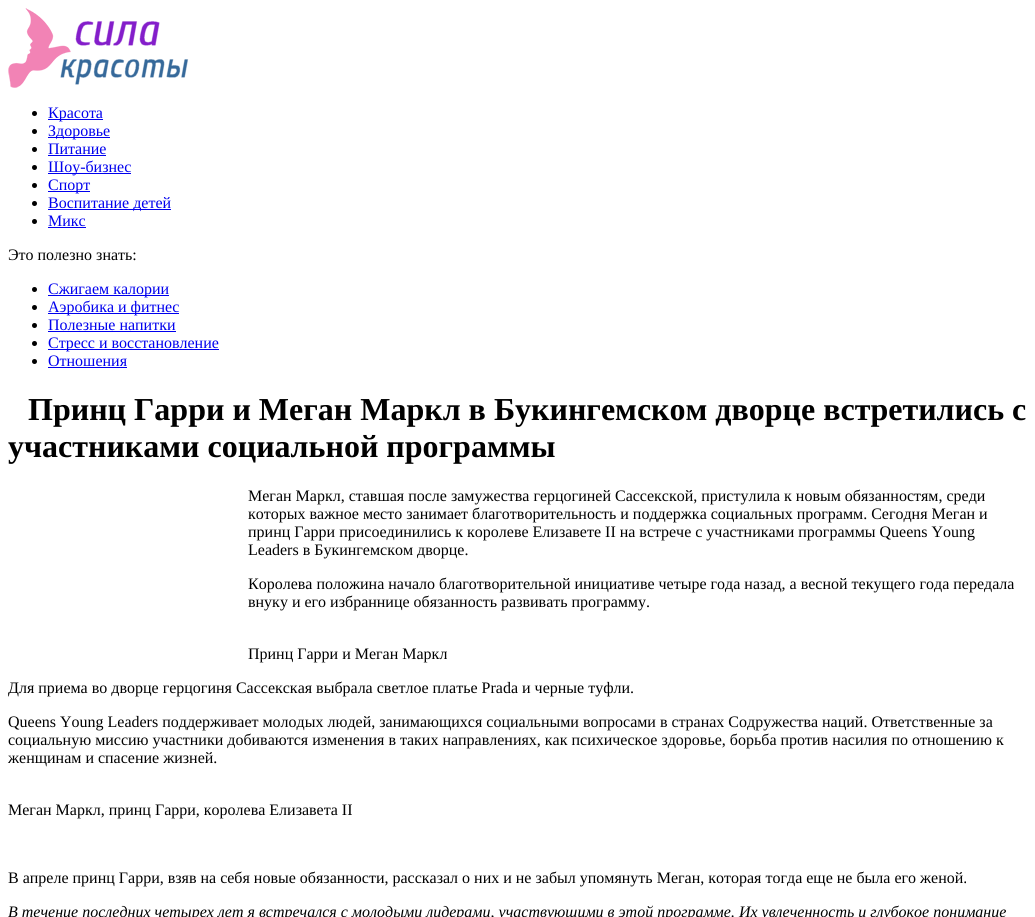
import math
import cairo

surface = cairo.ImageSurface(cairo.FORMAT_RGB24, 1035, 917)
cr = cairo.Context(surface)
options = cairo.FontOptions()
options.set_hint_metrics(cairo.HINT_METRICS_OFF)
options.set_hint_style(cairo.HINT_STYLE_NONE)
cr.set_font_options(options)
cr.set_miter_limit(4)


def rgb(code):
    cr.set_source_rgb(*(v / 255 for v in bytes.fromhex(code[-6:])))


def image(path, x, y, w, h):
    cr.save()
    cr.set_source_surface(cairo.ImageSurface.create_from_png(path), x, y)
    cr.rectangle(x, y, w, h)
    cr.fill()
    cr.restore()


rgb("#ffffff")
cr.paint()
image("img/1.png", 8, 8, 181, 80)
rgb("#000000")
cr.arc(34.5, 113.5, 2.5, 0, 2 * math.pi)
cr.fill()
rgb("#0000ee")
cr.rectangle(48, 119, 55, 1)
cr.fill()
rgb("#000000")
cr.arc(34.5, 131.5, 2.5, 0, 2 * math.pi)
cr.fill()
rgb("#0000ee")
cr.rectangle(48, 137, 62, 1)
cr.fill()
rgb("#000000")
cr.arc(34.5, 149.5, 2.5, 0, 2 * math.pi)
cr.fill()
rgb("#0000ee")
cr.rectangle(48, 155, 58, 1)
cr.fill()
rgb("#000000")
cr.arc(34.5, 167.5, 2.5, 0, 2 * math.pi)
cr.fill()
rgb("#0000ee")
cr.rectangle(48, 173, 83, 1)
cr.fill()
rgb("#000000")
cr.arc(34.5, 185.5, 2.5, 0, 2 * math.pi)
cr.fill()
rgb("#0000ee")
cr.rectangle(48, 191, 42, 1)
cr.fill()
rgb("#000000")
cr.arc(34.5, 203.5, 2.5, 0, 2 * math.pi)
cr.fill()
rgb("#0000ee")
cr.rectangle(48, 209, 123, 1)
cr.fill()
rgb("#000000")
cr.arc(34.5, 221.5, 2.5, 0, 2 * math.pi)
cr.fill()
rgb("#0000ee")
cr.rectangle(48, 227, 38, 1)
cr.fill()
rgb("#000000")
cr.arc(34.5, 289.5, 2.5, 0, 2 * math.pi)
cr.fill()
rgb("#0000ee")
cr.rectangle(48, 295, 121, 1)
cr.fill()
rgb("#000000")
cr.arc(34.5, 307.5, 2.5, 0, 2 * math.pi)
cr.fill()
rgb("#0000ee")
cr.rectangle(48, 313, 131, 1)
cr.fill()
rgb("#000000")
cr.arc(34.5, 325.5, 2.5, 0, 2 * math.pi)
cr.fill()
rgb("#0000ee")
cr.rectangle(48, 331, 128, 1)
cr.fill()
rgb("#000000")
cr.arc(34.5, 343.5, 2.5, 0, 2 * math.pi)
cr.fill()
rgb("#0000ee")
cr.rectangle(48, 349, 171, 1)
cr.fill()
rgb("#000000")
cr.arc(34.5, 361.5, 2.5, 0, 2 * math.pi)
cr.fill()
rgb("#0000ee")
cr.rectangle(48, 367, 79, 1)
cr.fill()
cr.select_font_face("Liberation Serif")
cr.set_font_size(16)
for x, y, s in [
    (48, 118, "Красота"),
    (48, 136, "Здоровье"),
    (48, 154, "Питание"),
    (48, 172, "Шоу-бизнес"),
    (48, 190, "Спорт"),
    (48, 208, "Воспитание детей"),
    (48, 226, "Микс"),
]:
    cr.move_to(x, y)
    cr.show_text(s)
rgb("#000000")
cr.move_to(8, 260)
cr.show_text("Это полезно знать:")
rgb("#0000ee")
for x, y, s in [
    (48, 294, "Сжигаем калории"),
    (48, 312, "Аэробика и фитнес"),
    (48, 330, "Полезные напитки"),
    (48, 348, "Стресс и восстановление"),
    (48, 366, "Отношения"),
]:
    cr.move_to(x, y)
    cr.show_text(s)
cr.select_font_face("Liberation Serif", cairo.FONT_SLANT_NORMAL, cairo.FONT_WEIGHT_BOLD)
cr.set_font_size(32)
rgb("#000000")
cr.move_to(28, 420)
cr.show_text("Принц Гарри и Меган Маркл в Букингемском дворце встретились с")
cr.move_to(8, 457)
cr.show_text("участниками социальной программы")
cr.select_font_face("Liberation Serif")
cr.set_font_size(16)
for x, y, s in [
    (248, 501, "Меган Маркл, ставшая после замужества герцогиней Сассекской, пристулила к новым обязанностям, среди"),
    (248, 519, "которых важное место занимает благотворительность и поддержка социальных программ. Сегодня Меган и"),
    (248, 537, "принц Гарри присоединились к королеве Елизавете II на встрече с участниками программы Queens Young"),
    (248, 555, "Leaders в Букингемском дворце."),
    (248, 589, "Королева положина начало благотворительной инициативе четыре года назад, а весной текущего года передала"),
    (248, 607, "внуку и его избраннице обязанность развивать программу."),
    (248, 659, "Принц Гарри и Меган Маркл"),
    (8, 693, "Для приема во дворце герцогиня Сассекская выбрала светлое платье Prada и черные туфли."),
    (8, 727, "Queens Young Leaders поддерживает молодых людей, занимающихся социальными вопросами в странах Содружества наций. Ответственные за"),
    (8, 745, "социальную миссию участники добиваются изменения в таких направлениях, как психическое здоровье, борьба против насилия по отношению к"),
    (8, 763, "женщинам и спасение жизней."),
    (8, 815, "Меган Маркл, принц Гарри, королева Елизавета II"),
    (8, 883, "В апреле принц Гарри, взяв на себя новые обязанности, рассказал о них и не забыл упомянуть Меган, которая тогда еще не была его женой."),
]:
    cr.move_to(x, y)
    cr.show_text(s)
cr.select_font_face("Liberation Serif", cairo.FONT_SLANT_ITALIC)
cr.move_to(8, 917)
cr.show_text("В течение последних четырех лет я встречался с молодыми лидерами, участвующими в этой программе. Их увлеченность и глубокое понимание")
surface.write_to_png("page.png")
